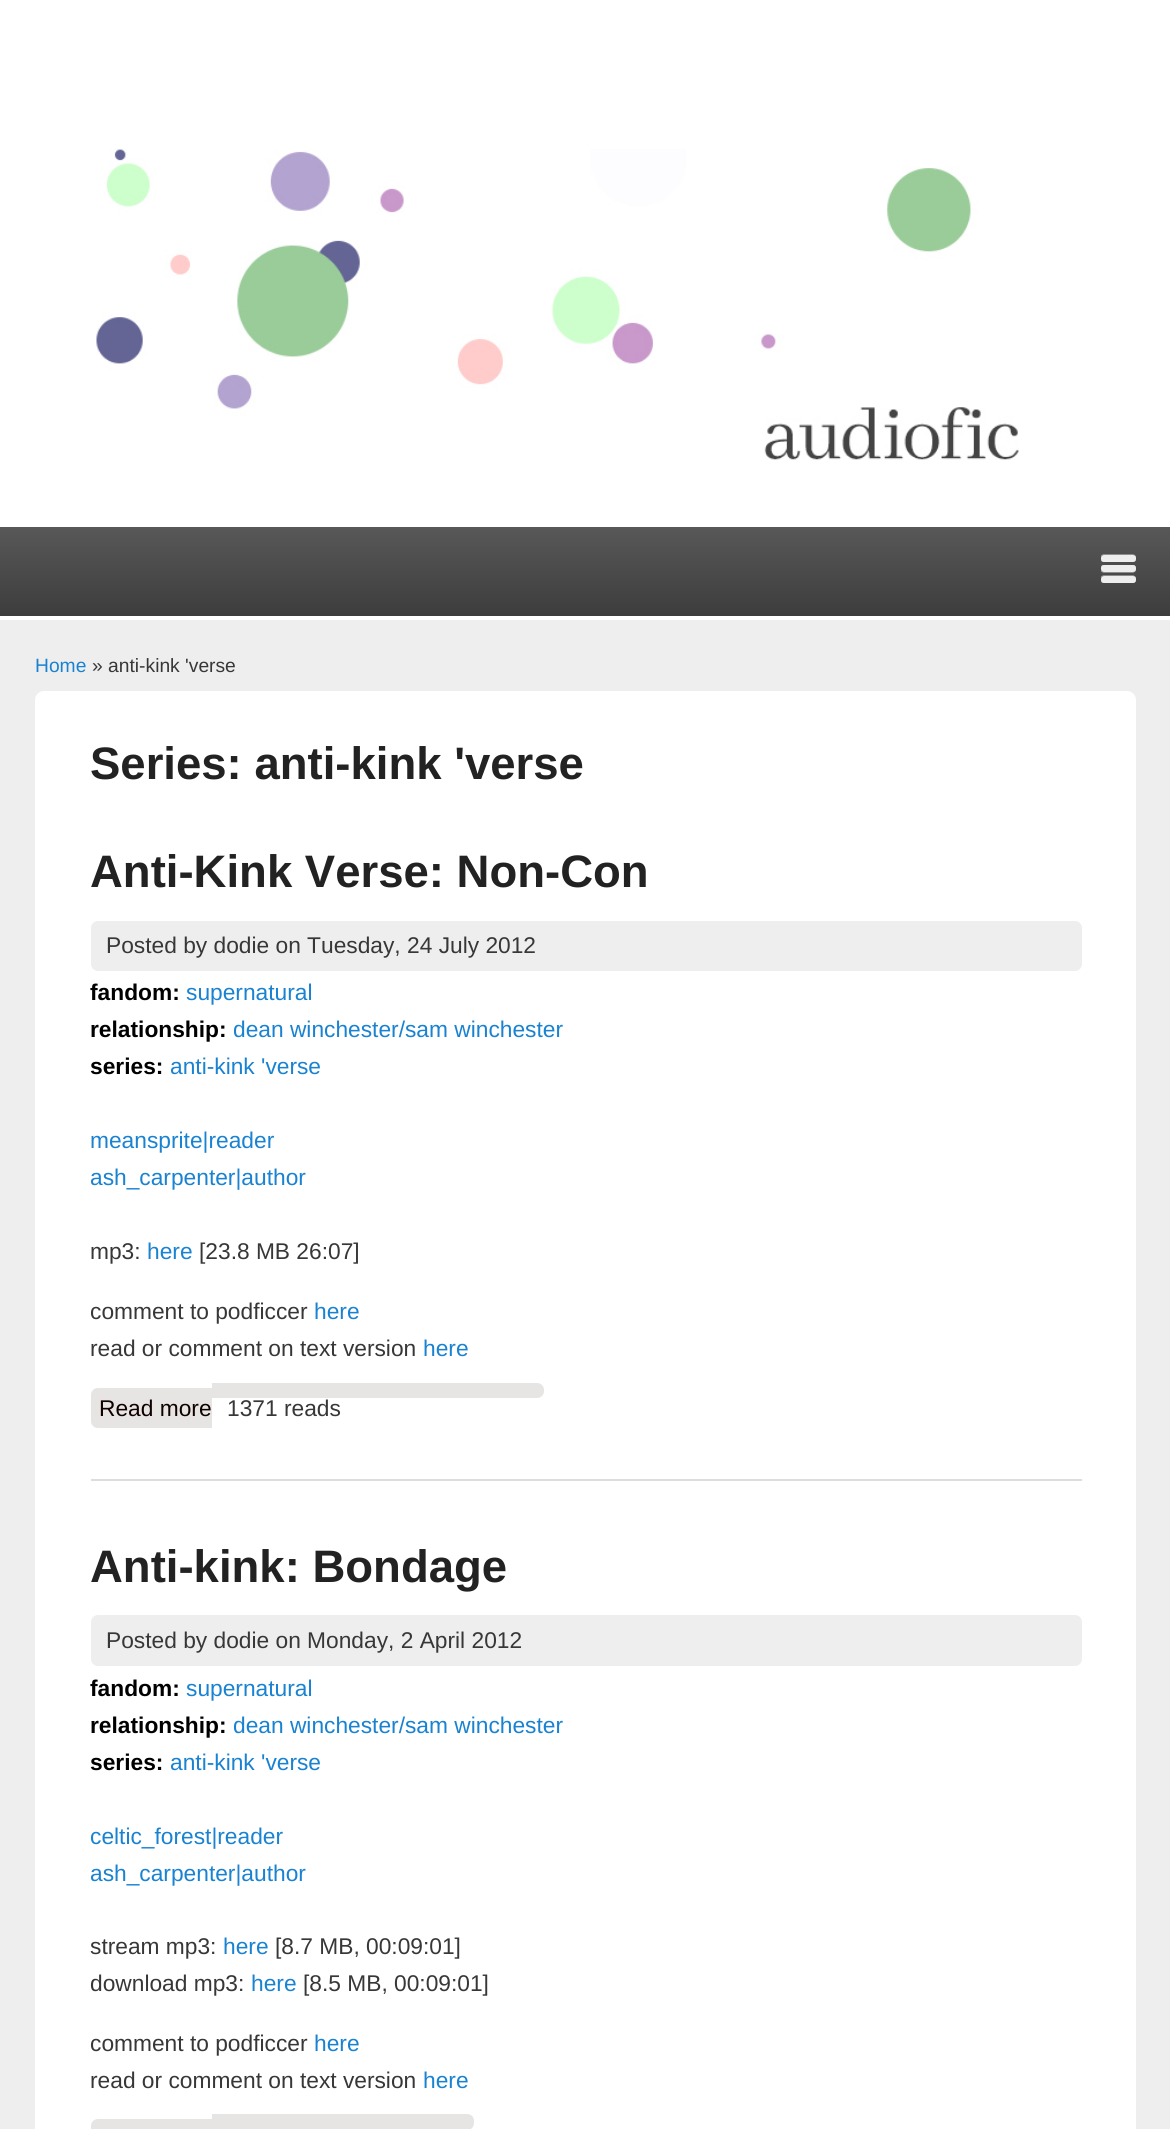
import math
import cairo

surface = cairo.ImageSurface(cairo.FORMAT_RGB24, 1170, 2129)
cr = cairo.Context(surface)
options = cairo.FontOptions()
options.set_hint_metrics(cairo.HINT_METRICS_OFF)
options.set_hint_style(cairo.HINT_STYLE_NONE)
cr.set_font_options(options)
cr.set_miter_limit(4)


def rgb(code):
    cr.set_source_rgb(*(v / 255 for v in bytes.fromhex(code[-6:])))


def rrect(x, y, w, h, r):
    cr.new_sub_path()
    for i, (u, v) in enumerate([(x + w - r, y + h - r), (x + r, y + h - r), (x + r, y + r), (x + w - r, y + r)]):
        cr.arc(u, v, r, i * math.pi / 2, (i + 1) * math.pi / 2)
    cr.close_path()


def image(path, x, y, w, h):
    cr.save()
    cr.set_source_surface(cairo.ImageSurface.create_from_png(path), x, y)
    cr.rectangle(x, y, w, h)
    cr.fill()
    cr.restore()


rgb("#eeeeee")
cr.paint()
rgb("#ffffff")
cr.rectangle(0, 0, 1170, 620)
cr.fill()
image("img/1.png", 96, 149, 923, 311)
gradient = cairo.LinearGradient(585, 527, 585, 616)
gradient.add_color_stop_rgba(0, 0.345, 0.345, 0.345, 1)
gradient.add_color_stop_rgba(1, 0.239, 0.239, 0.239, 1)
cr.set_source(gradient)
cr.rectangle(0, 527, 1170, 89)
cr.fill()
image("img/2.png", 1101, 554, 35, 29)
rgb("#ffffff")
rrect(35, 691, 1101, 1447, 9)
cr.fill()
rgb("#dddddd")
cr.rectangle(91, 1479, 991, 2)
cr.fill()
rgb("#eeeeee")
rrect(91, 921, 991, 50, 7)
cr.fill()
rgb("#e7e5e3")
cr.new_path()
cr.move_to(98, 1388)
cr.line_to(212, 1388)
cr.line_to(212, 1428)
cr.line_to(98, 1428)
cr.curve_to(94, 1428, 91, 1425, 91, 1421)
cr.line_to(91, 1395)
cr.curve_to(91, 1391, 94, 1388, 98, 1388)
cr.close_path()
cr.fill()
cr.new_path()
cr.move_to(212, 1383)
cr.line_to(537, 1383)
cr.curve_to(541, 1383, 544, 1386, 544, 1390)
cr.line_to(544, 1391)
cr.curve_to(544, 1395, 541, 1398, 537, 1398)
cr.line_to(212, 1398)
cr.close_path()
cr.fill()
rgb("#eeeeee")
rrect(91, 1615, 991, 51, 7)
cr.fill()
rgb("#e7e5e3")
cr.new_path()
cr.move_to(98, 2119)
cr.line_to(212, 2119)
cr.line_to(212, 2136)
cr.line_to(98, 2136)
cr.curve_to(94, 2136, 91, 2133, 91, 2129)
cr.line_to(91, 2126)
cr.curve_to(91, 2122, 94, 2119, 98, 2119)
cr.close_path()
cr.fill()
cr.new_path()
cr.move_to(212, 2114)
cr.line_to(467, 2114)
cr.curve_to(471, 2114, 474, 2117, 474, 2121)
cr.line_to(474, 2123)
cr.curve_to(474, 2127, 471, 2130, 467, 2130)
cr.line_to(212, 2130)
cr.close_path()
cr.fill()
cr.select_font_face("Liberation Sans")
cr.set_font_size(19.25)
rgb("#1982d1")
cr.move_to(35, 672)
cr.show_text("Home")
rgb("#373737")
cr.move_to(92, 672)
cr.show_text("» anti-kink 'verse")
cr.select_font_face("Liberation Sans", cairo.FONT_SLANT_NORMAL, cairo.FONT_WEIGHT_BOLD)
cr.set_font_size(45.5)
rgb("#222222")
cr.move_to(90, 779)
cr.show_text("Series: anti-kink 'verse")
cr.move_to(90, 887)
cr.show_text("Anti-Kink Verse: Non-Con")
cr.select_font_face("Liberation Sans")
cr.set_font_size(22.75)
rgb("#373737")
cr.move_to(106, 953)
cr.show_text("Posted by dodie on Tuesday, 24 July 2012")
cr.select_font_face("Liberation Sans", cairo.FONT_SLANT_NORMAL, cairo.FONT_WEIGHT_BOLD)
rgb("#000000")
cr.move_to(90, 1000)
cr.show_text("fandom:")
cr.select_font_face("Liberation Sans")
rgb("#1982d1")
cr.move_to(186, 1000)
cr.show_text("supernatural")
cr.select_font_face("Liberation Sans", cairo.FONT_SLANT_NORMAL, cairo.FONT_WEIGHT_BOLD)
rgb("#000000")
cr.move_to(90, 1037)
cr.show_text("relationship:")
cr.select_font_face("Liberation Sans")
rgb("#1982d1")
cr.move_to(233, 1037)
cr.show_text("dean winchester/sam winchester")
cr.select_font_face("Liberation Sans", cairo.FONT_SLANT_NORMAL, cairo.FONT_WEIGHT_BOLD)
rgb("#000000")
cr.move_to(90, 1074)
cr.show_text("series:")
cr.select_font_face("Liberation Sans")
rgb("#1982d1")
for x, y, s in [
    (170, 1074, "anti-kink 'verse"),
    (90, 1148, "meansprite|reader"),
    (90, 1185, "ash_carpenter|author"),
]:
    cr.move_to(x, y)
    cr.show_text(s)
rgb("#373737")
cr.move_to(90, 1259)
cr.show_text("mp3:")
rgb("#1982d1")
cr.move_to(147, 1259)
cr.show_text("here")
rgb("#373737")
cr.move_to(199, 1259)
cr.show_text("[23.8 MB 26:07]")
cr.move_to(90, 1319)
cr.show_text("comment to podficcer")
rgb("#1982d1")
cr.move_to(314, 1319)
cr.show_text("here")
rgb("#373737")
cr.move_to(90, 1356)
cr.show_text("read or comment on text version")
rgb("#1982d1")
cr.move_to(423, 1356)
cr.show_text("here")
rgb("#100100")
cr.move_to(99, 1416)
cr.show_text("Read more")
rgb("#373737")
cr.move_to(227, 1416)
cr.show_text("1371 reads")
cr.select_font_face("Liberation Sans", cairo.FONT_SLANT_NORMAL, cairo.FONT_WEIGHT_BOLD)
cr.set_font_size(45.5)
rgb("#222222")
cr.move_to(90, 1582)
cr.show_text("Anti-kink: Bondage")
cr.select_font_face("Liberation Sans")
cr.set_font_size(22.75)
rgb("#373737")
cr.move_to(106, 1648)
cr.show_text("Posted by dodie on Monday, 2 April 2012")
cr.select_font_face("Liberation Sans", cairo.FONT_SLANT_NORMAL, cairo.FONT_WEIGHT_BOLD)
rgb("#000000")
cr.move_to(90, 1696)
cr.show_text("fandom:")
cr.select_font_face("Liberation Sans")
rgb("#1982d1")
cr.move_to(186, 1696)
cr.show_text("supernatural")
cr.select_font_face("Liberation Sans", cairo.FONT_SLANT_NORMAL, cairo.FONT_WEIGHT_BOLD)
rgb("#000000")
cr.move_to(90, 1733)
cr.show_text("relationship:")
cr.select_font_face("Liberation Sans")
rgb("#1982d1")
cr.move_to(233, 1733)
cr.show_text("dean winchester/sam winchester")
cr.select_font_face("Liberation Sans", cairo.FONT_SLANT_NORMAL, cairo.FONT_WEIGHT_BOLD)
rgb("#000000")
cr.move_to(90, 1770)
cr.show_text("series:")
cr.select_font_face("Liberation Sans")
rgb("#1982d1")
for x, y, s in [
    (170, 1770, "anti-kink 'verse"),
    (90, 1844, "celtic_forest|reader"),
    (90, 1881, "ash_carpenter|author"),
]:
    cr.move_to(x, y)
    cr.show_text(s)
rgb("#373737")
cr.move_to(90, 1954)
cr.show_text("stream mp3:")
rgb("#1982d1")
cr.move_to(223, 1954)
cr.show_text("here")
rgb("#373737")
cr.move_to(275, 1954)
cr.show_text("[8.7 MB, 00:09:01]")
cr.move_to(90, 1991)
cr.show_text("download mp3:")
rgb("#1982d1")
cr.move_to(251, 1991)
cr.show_text("here")
rgb("#373737")
cr.move_to(303, 1991)
cr.show_text("[8.5 MB, 00:09:01]")
cr.move_to(90, 2051)
cr.show_text("comment to podficcer")
rgb("#1982d1")
cr.move_to(314, 2051)
cr.show_text("here")
rgb("#373737")
cr.move_to(90, 2088)
cr.show_text("read or comment on text version")
rgb("#1982d1")
cr.move_to(423, 2088)
cr.show_text("here")
surface.write_to_png("page.png")
